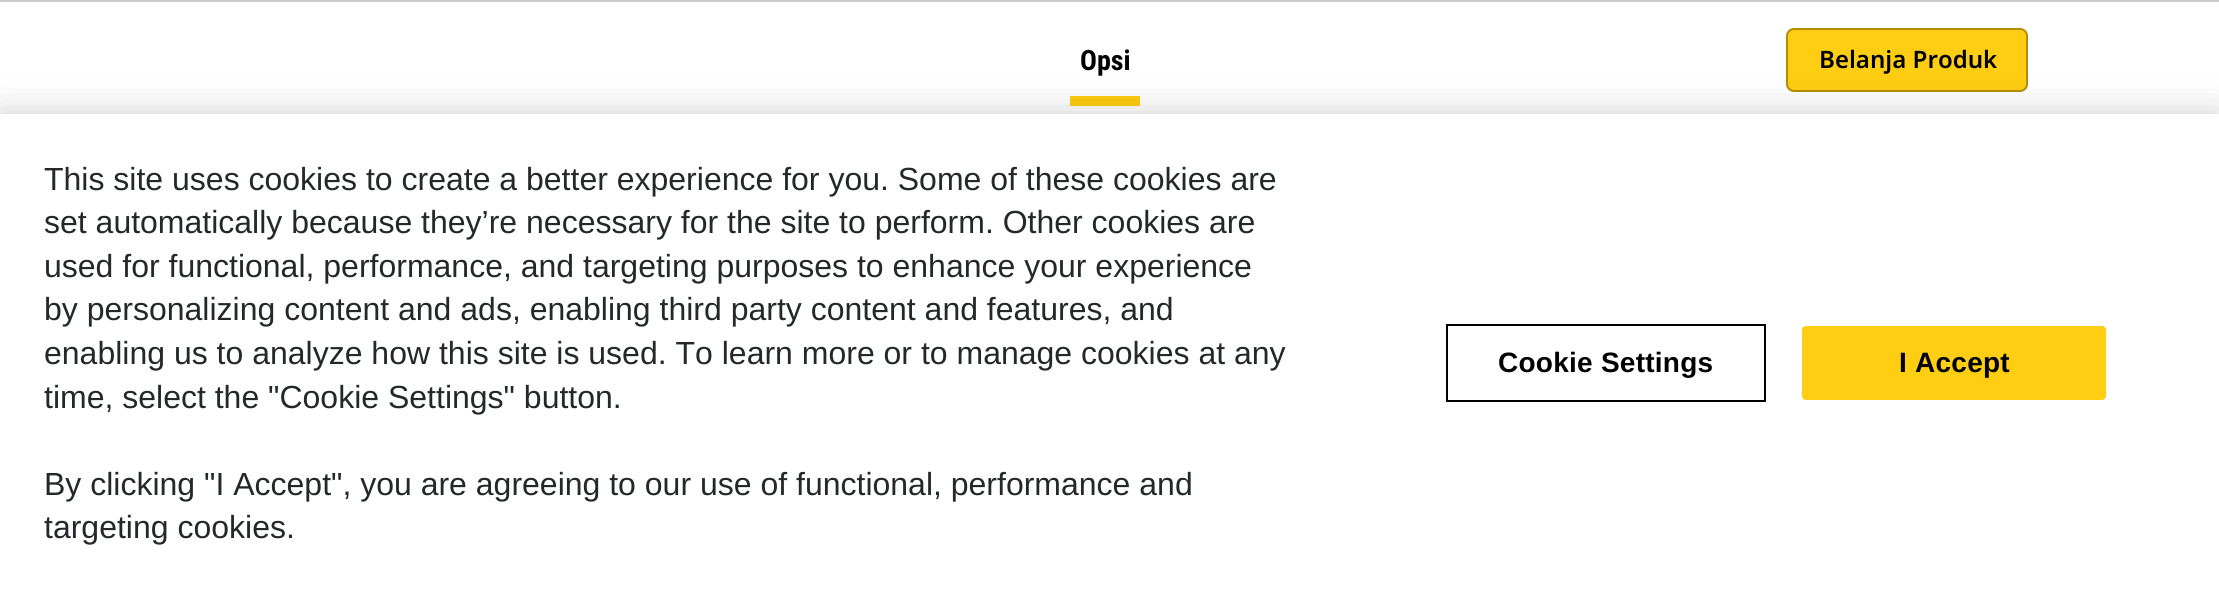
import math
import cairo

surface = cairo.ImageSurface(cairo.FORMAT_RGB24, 2219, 594)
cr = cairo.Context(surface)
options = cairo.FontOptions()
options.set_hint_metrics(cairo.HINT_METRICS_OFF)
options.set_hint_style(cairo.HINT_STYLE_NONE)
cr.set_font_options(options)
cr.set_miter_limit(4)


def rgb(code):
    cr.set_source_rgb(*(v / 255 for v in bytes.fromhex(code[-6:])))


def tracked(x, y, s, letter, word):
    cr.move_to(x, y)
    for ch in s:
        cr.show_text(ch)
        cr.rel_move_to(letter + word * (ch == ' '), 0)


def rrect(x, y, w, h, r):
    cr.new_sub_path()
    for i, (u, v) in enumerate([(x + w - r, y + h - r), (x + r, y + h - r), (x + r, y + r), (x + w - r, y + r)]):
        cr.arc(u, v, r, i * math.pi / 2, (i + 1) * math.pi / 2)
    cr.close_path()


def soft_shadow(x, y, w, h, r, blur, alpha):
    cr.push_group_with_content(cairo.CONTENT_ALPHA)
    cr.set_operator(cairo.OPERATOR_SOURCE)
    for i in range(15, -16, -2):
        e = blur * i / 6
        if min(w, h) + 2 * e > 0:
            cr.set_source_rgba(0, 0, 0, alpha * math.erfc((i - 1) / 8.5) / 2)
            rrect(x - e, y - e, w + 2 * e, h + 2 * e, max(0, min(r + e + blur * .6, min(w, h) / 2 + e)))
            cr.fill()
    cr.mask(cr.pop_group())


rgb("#ffffff")
cr.paint()
rgb("#cccccc")
cr.rectangle(0, 0, 2219, 2)
cr.fill()
rgb("#ffcd11")
cr.rectangle(1070, 96, 70, 10)
cr.fill()
rrect(1787, 29, 240, 62, 7)
cr.fill_preserve()
rgb("#b18d00")
cr.stroke()
rgb("#000000")
soft_shadow(0, 114, 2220, 480, 0, 18, 0.2)
rgb("#ffffff")
cr.rectangle(0, 114, 2219, 480)
cr.fill()
cr.rectangle(1447, 325, 318, 76)
rgb("#000000")
cr.stroke()
rgb("#ffcd11")
rrect(1802, 326, 304, 74, 4)
cr.fill()
cr.select_font_face("Roboto Condensed", cairo.FONT_SLANT_NORMAL, cairo.FONT_WEIGHT_BOLD)
cr.set_font_size(28)
rgb("#000000")
cr.move_to(1080, 70)
cr.show_text("Opsi")
cr.select_font_face("Noto Sans SemiBold")
cr.set_font_size(24)
cr.move_to(1819, 68)
cr.show_text("Belanja Produk")
cr.select_font_face("Liberation Sans")
cr.set_font_size(32)
rgb("#25282b")
for x, y, s in [
    (44, 190, "This site uses cookies to create a better experience for you. Some of these cookies are"),
    (44, 233, "set automatically because they’re necessary for the site to perform. Other cookies are"),
    (44, 277, "used for functional, performance, and targeting purposes to enhance your experience"),
    (44, 320, "by personalizing content and ads, enabling third party content and features, and"),
    (44, 364, "enabling us to analyze how this site is used. To learn more or to manage cookies at any"),
    (44, 408, "time, select the \"Cookie Settings\" button."),
    (44, 495, "By clicking \"I Accept\", you are agreeing to our use of functional, performance and"),
    (44, 538, "targeting cookies."),
]:
    cr.move_to(x, y)
    cr.show_text(s)
cr.select_font_face("Liberation Sans", cairo.FONT_SLANT_NORMAL, cairo.FONT_WEIGHT_BOLD)
cr.set_font_size(28)
rgb("#000000")
tracked(1498, 372, "Cookie Settings", 0.25, 0)
tracked(1899, 372, "I Accept", 0.25, 0)
surface.write_to_png("page.png")
